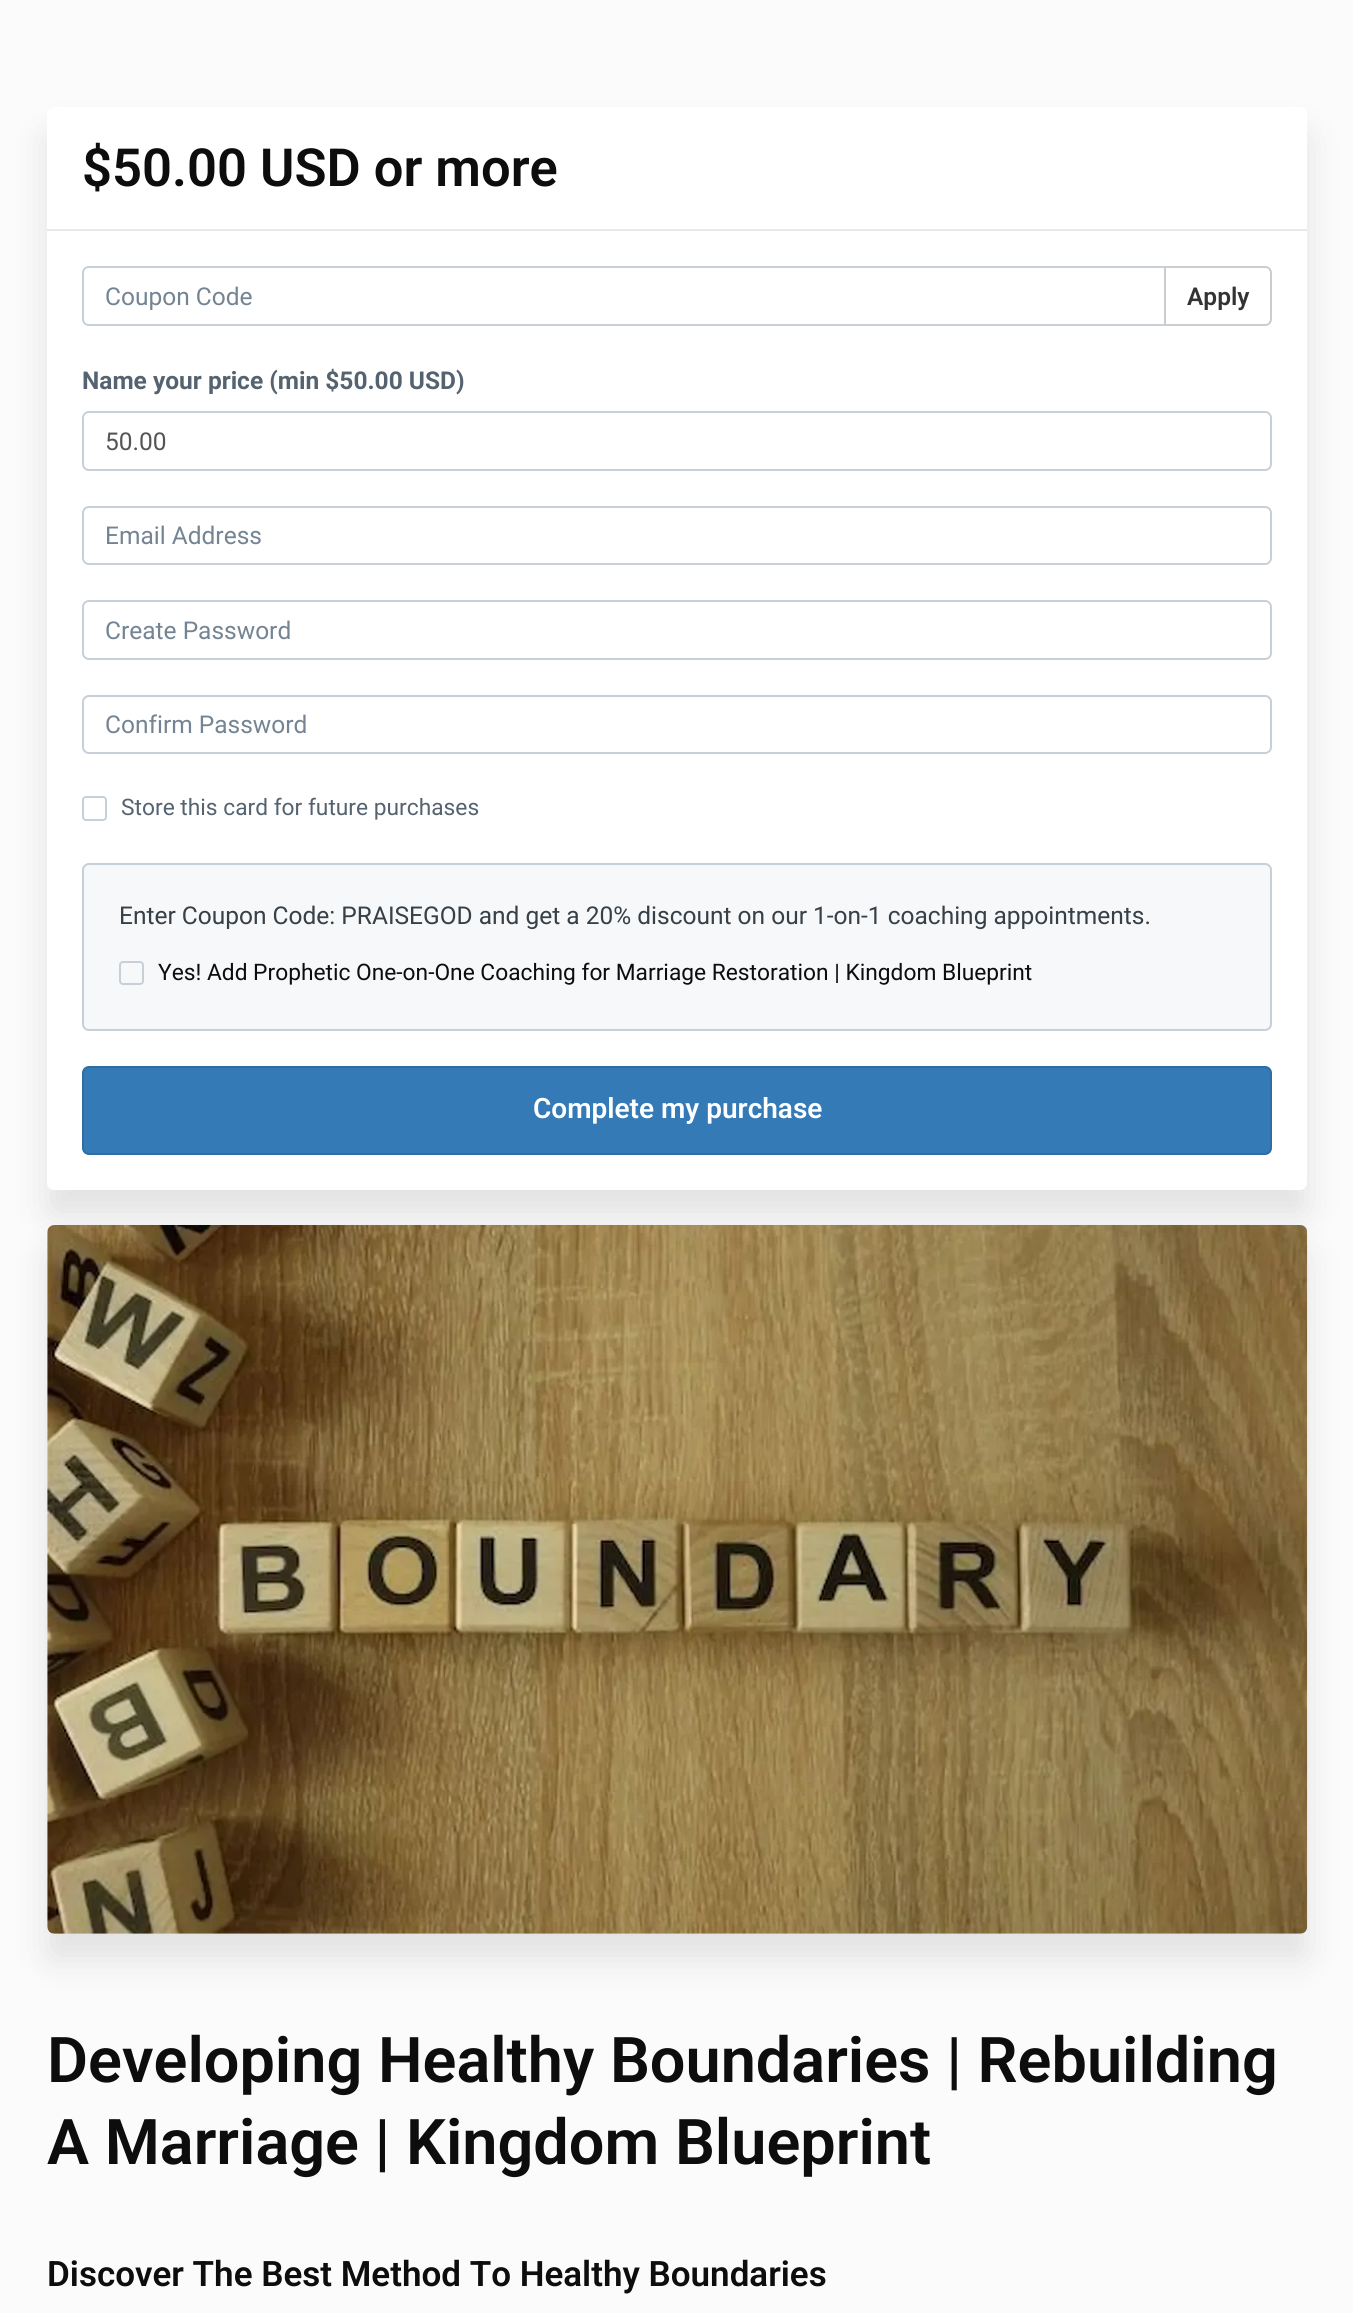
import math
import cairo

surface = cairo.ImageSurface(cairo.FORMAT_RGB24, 1353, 2313)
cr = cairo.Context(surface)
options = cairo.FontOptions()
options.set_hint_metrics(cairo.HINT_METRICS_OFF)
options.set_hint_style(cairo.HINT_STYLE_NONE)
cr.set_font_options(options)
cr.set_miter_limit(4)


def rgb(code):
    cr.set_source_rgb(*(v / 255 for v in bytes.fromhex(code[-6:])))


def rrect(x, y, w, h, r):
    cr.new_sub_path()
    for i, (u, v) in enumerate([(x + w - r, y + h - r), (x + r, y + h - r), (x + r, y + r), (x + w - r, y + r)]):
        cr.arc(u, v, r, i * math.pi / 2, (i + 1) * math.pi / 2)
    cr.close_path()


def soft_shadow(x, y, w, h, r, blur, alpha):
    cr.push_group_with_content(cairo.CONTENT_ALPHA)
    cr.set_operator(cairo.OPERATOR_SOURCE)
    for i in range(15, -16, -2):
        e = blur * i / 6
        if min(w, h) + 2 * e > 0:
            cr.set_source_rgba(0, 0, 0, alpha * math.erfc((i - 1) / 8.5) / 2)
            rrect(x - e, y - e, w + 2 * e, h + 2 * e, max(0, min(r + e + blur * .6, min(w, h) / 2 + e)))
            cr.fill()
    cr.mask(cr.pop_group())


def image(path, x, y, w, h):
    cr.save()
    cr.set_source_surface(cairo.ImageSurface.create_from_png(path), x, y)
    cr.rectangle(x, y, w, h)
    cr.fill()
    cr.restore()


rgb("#fbfbfb")
cr.paint()
rgb("#000000")
soft_shadow(47, 133, 1260, 1083, 7, 17.5, 0.1)
rgb("#ffffff")
rrect(47, 107, 1260, 1083, 7)
cr.fill()
rgb("#e5e9e9")
cr.rectangle(47, 229, 1260, 2)
cr.fill()
cr.new_path()
cr.move_to(89, 267)
cr.line_to(1165, 267)
cr.line_to(1165, 325)
cr.line_to(89, 325)
cr.curve_to(85.5, 325, 83, 322.5, 83, 319)
cr.line_to(83, 273)
cr.curve_to(83, 269.5, 85.5, 267, 89, 267)
cr.close_path()
rgb("#c7cfd8")
cr.stroke()
rgb("#ffffff")
cr.new_path()
cr.move_to(1165, 267)
cr.line_to(1265, 267)
cr.curve_to(1268.5, 267, 1271, 269.5, 1271, 273)
cr.line_to(1271, 319)
cr.curve_to(1271, 322.5, 1268.5, 325, 1265, 325)
cr.line_to(1165, 325)
cr.close_path()
cr.fill_preserve()
rgb("#cccccc")
cr.stroke()
rrect(83, 412, 1188, 58, 6)
rgb("#c7cfd8")
cr.stroke()
rrect(83, 507, 1188, 57, 6)
cr.stroke()
rrect(83, 601, 1188, 58, 6)
cr.stroke()
rrect(83, 696, 1188, 57, 6)
cr.stroke()
rrect(83, 797, 23, 23, 3)
cr.stroke()
rgb("#f6f8f9")
rrect(83, 864, 1188, 166, 6)
cr.fill_preserve()
rgb("#c7cfd8")
cr.stroke()
rrect(120, 962, 23, 22, 3)
cr.stroke()
rgb("#337ab7")
rrect(83, 1067, 1188, 87, 6)
cr.fill_preserve()
rgb("#2e6da4")
cr.stroke()
rgb("#000000")
soft_shadow(47, 1251, 1260, 709, 7, 17.5, 0.1)
image("img/1.png", 47, 1225, 1261, 709)
cr.select_font_face("Roboto SemiBold")
cr.set_font_size(52.5)
rgb("#0d0d0d")
cr.move_to(82, 186)
cr.show_text("$50.00 USD or more")
cr.select_font_face("Roboto")
cr.set_font_size(24.5)
rgb("#748493")
cr.move_to(105, 305)
cr.show_text("Coupon Code")
cr.select_font_face("Roboto SemiBold")
rgb("#333333")
cr.move_to(1187, 305)
cr.show_text("Apply")
cr.select_font_face("Roboto", cairo.FONT_SLANT_NORMAL, cairo.FONT_WEIGHT_BOLD)
rgb("#556370")
cr.move_to(82, 389)
cr.show_text("Name your price (min $50.00 USD)")
cr.select_font_face("Roboto")
rgb("#555555")
cr.move_to(105, 450)
cr.show_text("50.00")
rgb("#748493")
for x, y, s in [
    (105, 544, "Email Address"),
    (105, 639, "Create Password"),
    (105, 733, "Confirm Password"),
]:
    cr.move_to(x, y)
    cr.show_text(s)
cr.set_font_size(22.75)
rgb("#556370")
cr.move_to(121, 815)
cr.show_text("Store this card for future purchases")
cr.set_font_size(24.5)
rgb("#373f47")
cr.move_to(119, 924)
cr.show_text("Enter Coupon Code: PRAISEGOD and get a 20% discount on our 1-on-1 coaching appointments.")
cr.set_font_size(22.75)
rgb("#0d0d0d")
cr.move_to(158, 980)
cr.show_text("Yes! Add Prophetic One-on-One Coaching for Marriage Restoration | Kingdom Blueprint")
cr.select_font_face("Roboto SemiBold")
cr.set_font_size(28)
rgb("#ffffff")
cr.move_to(533, 1118)
cr.show_text("Complete my purchase")
cr.set_font_size(63)
rgb("#0d0d0d")
cr.move_to(47, 2082)
cr.show_text("Developing Healthy Boundaries | Rebuilding")
cr.move_to(47, 2164)
cr.show_text("A Marriage | Kingdom Blueprint")
cr.set_font_size(35)
cr.move_to(47, 2286)
cr.show_text("Discover The Best Method To Healthy Boundaries")
surface.write_to_png("page.png")
